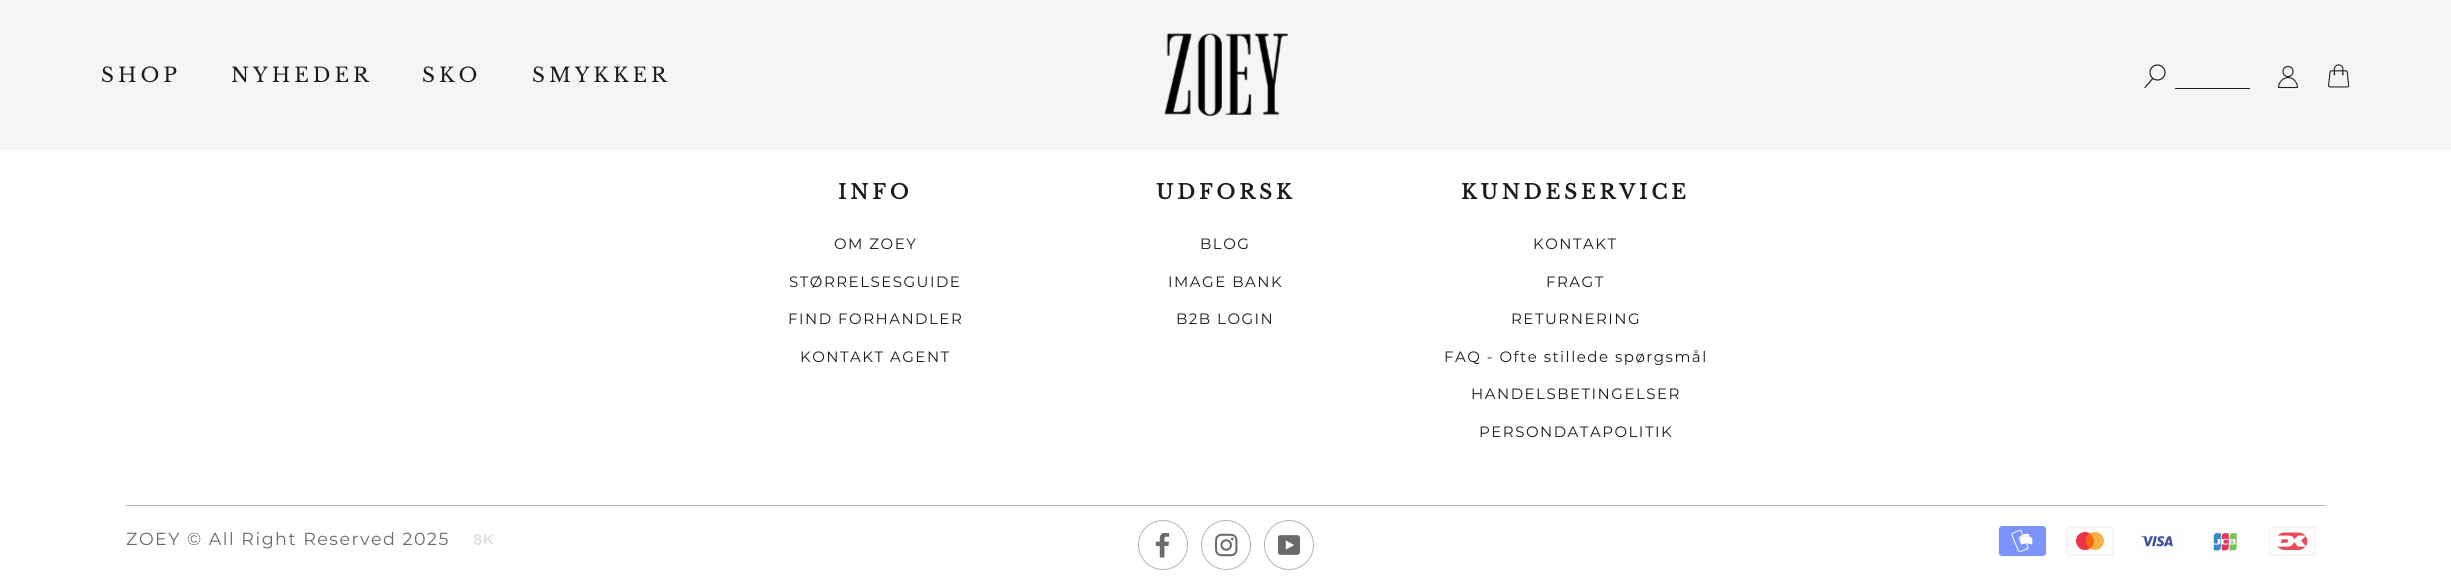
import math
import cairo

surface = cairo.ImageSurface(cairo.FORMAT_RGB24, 2451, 583)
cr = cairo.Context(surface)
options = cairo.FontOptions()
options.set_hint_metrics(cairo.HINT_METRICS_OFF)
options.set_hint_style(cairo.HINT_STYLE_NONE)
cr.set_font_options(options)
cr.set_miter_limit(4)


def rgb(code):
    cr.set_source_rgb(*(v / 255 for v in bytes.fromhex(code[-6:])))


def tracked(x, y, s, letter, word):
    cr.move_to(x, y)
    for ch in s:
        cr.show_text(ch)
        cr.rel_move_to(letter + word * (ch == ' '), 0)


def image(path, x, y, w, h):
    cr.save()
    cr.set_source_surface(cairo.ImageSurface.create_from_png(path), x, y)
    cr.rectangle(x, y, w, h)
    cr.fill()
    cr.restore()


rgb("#ffffff")
cr.paint()
rgb("#f5f5f5")
cr.rectangle(0, 0, 2451, 150)
cr.fill()
image("img/1.png", 1164, 33, 125, 84)
image("img/2.png", 2144, 64, 22, 24)
rgb("#1e1e1e")
cr.rectangle(2175, 88, 75, 1)
cr.fill()
cr.arc(2288, 71.5, 5, 0, 2 * math.pi)
cr.set_line_width(1.1)
cr.stroke()
cr.new_path()
cr.move_to(2278.5, 87.5)
cr.curve_to(2279, 78.5, 2289.5, 73.5, 2295.5, 81.5)
cr.curve_to(2296.5, 83, 2297.5, 85, 2297.5, 87.5)
cr.close_path()
cr.stroke()
image("img/3.png", 2328, 64, 22, 24)
rgb("#b4b4b4")
cr.rectangle(126, 505, 2200, 1)
cr.fill()
image("img/4.png", 474, 534, 20, 11)
cr.arc(1163, 545, 24.5, 0, 2 * math.pi)
cr.set_line_width(1)
cr.stroke()
image("img/5.png", 1155, 533, 15, 25)
cr.arc(1226, 545, 24.5, 0, 2 * math.pi)
cr.stroke()
image("img/6.png", 1215, 533, 23, 24)
cr.arc(1289, 545, 24.5, 0, 2 * math.pi)
cr.stroke()
image("img/7.png", 1278, 535, 22, 20)
image("img/8.png", 1998, 526, 49, 30)
image("img/9.png", 2066, 526, 48, 30)
image("img/10.png", 2134, 526, 47, 30)
image("img/11.png", 2213, 533, 24, 18)
image("img/12.png", 2269, 526, 47, 30)
cr.select_font_face("Libre Baskerville")
cr.set_font_size(20)
rgb("#1c1b1b")
for x, y, s in [
    (101, 82, "SHOP"),
    (231, 82, "NYHEDER"),
    (422, 82, "SKO"),
    (532, 82, "SMYKKER"),
]:
    tracked(x, y, s, 4, 0)
cr.select_font_face("Libre Baskerville", cairo.FONT_SLANT_NORMAL, cairo.FONT_WEIGHT_BOLD)
tracked(838, 199, "INFO", 4, 0)
cr.select_font_face("Montserrat")
cr.set_font_size(15)
for x, y, s in [
    (834, 249, "OM ZOEY"),
    (789, 287, "STØRRELSESGUIDE"),
    (788, 324, "FIND FORHANDLER"),
    (800, 362, "KONTAKT AGENT"),
]:
    tracked(x, y, s, 1.5, 0)
cr.select_font_face("Libre Baskerville", cairo.FONT_SLANT_NORMAL, cairo.FONT_WEIGHT_BOLD)
cr.set_font_size(20)
tracked(1156, 199, "UDFORSK", 4, 0)
cr.select_font_face("Montserrat")
cr.set_font_size(15)
for x, y, s in [
    (1200, 249, "BLOG"),
    (1168, 287, "IMAGE BANK"),
    (1176, 324, "B2B LOGIN"),
]:
    tracked(x, y, s, 1.5, 0)
cr.select_font_face("Libre Baskerville", cairo.FONT_SLANT_NORMAL, cairo.FONT_WEIGHT_BOLD)
cr.set_font_size(20)
tracked(1461, 199, "KUNDESERVICE", 4, 0)
cr.select_font_face("Montserrat")
cr.set_font_size(15)
for x, y, s in [
    (1533, 249, "KONTAKT"),
    (1546, 287, "FRAGT"),
    (1511, 324, "RETURNERING"),
    (1444, 362, "FAQ - Ofte stillede spørgsmål"),
    (1471, 399, "HANDELSBETINGELSER"),
    (1479, 437, "PERSONDATAPOLITIK"),
]:
    tracked(x, y, s, 1.5, 0)
cr.set_font_size(17.5)
rgb("#6a6a6a")
tracked(126, 545, "ZOEY © All Right Reserved 2025", 1.5, 0)
surface.write_to_png("page.png")
